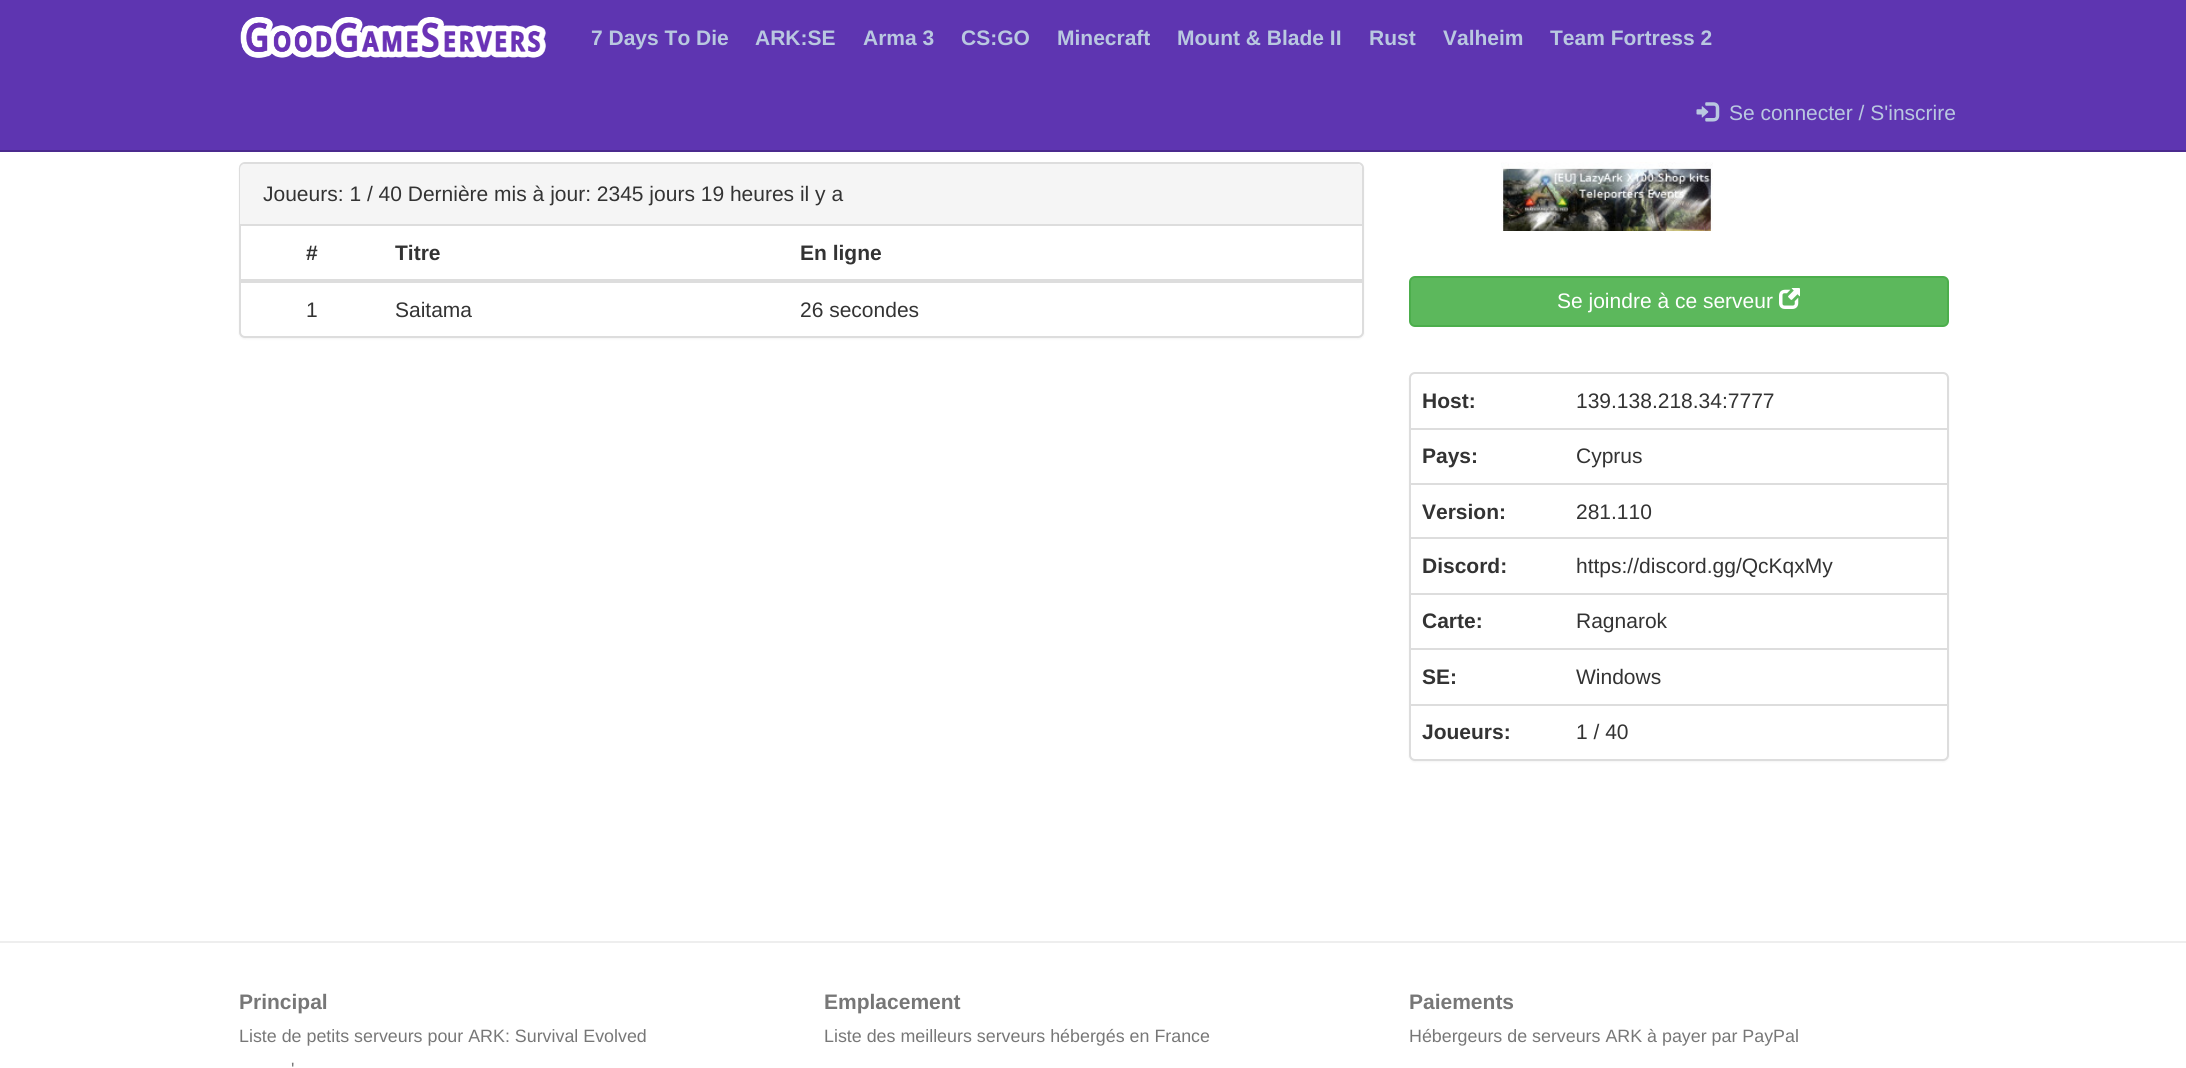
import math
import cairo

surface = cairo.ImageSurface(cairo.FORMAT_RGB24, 2186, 1068)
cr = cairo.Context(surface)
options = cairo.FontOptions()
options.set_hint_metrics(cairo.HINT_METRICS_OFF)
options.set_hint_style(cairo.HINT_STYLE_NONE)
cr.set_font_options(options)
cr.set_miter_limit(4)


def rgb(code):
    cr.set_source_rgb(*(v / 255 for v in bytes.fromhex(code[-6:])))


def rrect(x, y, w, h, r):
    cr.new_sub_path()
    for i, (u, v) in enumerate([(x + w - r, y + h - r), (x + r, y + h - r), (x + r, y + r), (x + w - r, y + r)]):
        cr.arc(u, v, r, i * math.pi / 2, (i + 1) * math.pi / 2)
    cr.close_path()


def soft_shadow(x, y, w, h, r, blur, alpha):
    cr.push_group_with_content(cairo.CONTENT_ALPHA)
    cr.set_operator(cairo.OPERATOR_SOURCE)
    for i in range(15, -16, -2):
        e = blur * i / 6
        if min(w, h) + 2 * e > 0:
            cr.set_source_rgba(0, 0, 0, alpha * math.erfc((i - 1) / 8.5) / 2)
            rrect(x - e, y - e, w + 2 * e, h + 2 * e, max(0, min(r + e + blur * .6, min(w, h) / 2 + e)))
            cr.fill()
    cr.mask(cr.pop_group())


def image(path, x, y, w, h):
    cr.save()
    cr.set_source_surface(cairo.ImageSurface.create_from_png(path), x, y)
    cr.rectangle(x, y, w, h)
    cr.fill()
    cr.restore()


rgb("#ffffff")
cr.paint()
rgb("#5e35b1")
cr.rectangle(0, 0, 2186, 150)
cr.fill()
rgb("#4b2a8e")
cr.rectangle(0, 150, 2186, 2)
cr.fill()
image("img/1.png", 240, 17, 306, 41)
image("img/2.png", 1696, 102, 24, 20)
rgb("#000000")
soft_shadow(239, 164, 1125, 175, 6, 1, 0.05)
rgb("#ffffff")
rrect(240, 163, 1123, 174, 5)
cr.fill_preserve()
rgb("#dddddd")
cr.stroke()
rgb("#f5f5f5")
cr.new_path()
cr.move_to(245, 164)
cr.line_to(1357, 164)
cr.curve_to(1360, 164, 1362, 166, 1362, 169)
cr.line_to(1362, 225)
cr.line_to(240, 225)
cr.line_to(240, 169)
cr.curve_to(240, 166, 242, 164, 245, 164)
cr.close_path()
cr.fill()
for x, y, w, h, color in [
    (240, 224, 1122, 2, "#dddddd"),
    (239, 279, 1125, 3, "#dddddd"),
    (240, 282, 1124, 1, "#dddddd"),
]:
    rgb(color)
    cr.rectangle(x, y, w, h)
    cr.fill()
image("img/3.png", 1501, 162, 212, 69)
rgb("#5cb85c")
rrect(1410, 277, 538, 49, 5)
cr.fill_preserve()
rgb("#4cae4c")
cr.stroke()
image("img/4.png", 1779, 288, 21, 21)
rgb("#000000")
soft_shadow(1409, 374, 540, 388, 6, 1, 0.05)
rgb("#ffffff")
rrect(1410, 373, 538, 387, 5)
cr.fill_preserve()
rgb("#dddddd")
cr.stroke()
for x, y, w, h, color in [
    (1410, 428, 539, 2, "#dddddd"),
    (1410, 483, 539, 2, "#dddddd"),
    (1410, 537, 539, 2, "#dddddd"),
    (1410, 593, 539, 2, "#dddddd"),
    (1410, 648, 539, 2, "#dddddd"),
    (1410, 704, 539, 2, "#dddddd"),
    (0, 941, 2186, 2, "#eeeeee"),
]:
    rgb(color)
    cr.rectangle(x, y, w, h)
    cr.fill()
cr.select_font_face("Liberation Sans", cairo.FONT_SLANT_NORMAL, cairo.FONT_WEIGHT_BOLD)
cr.set_font_size(21)
rgb("#b9c8e0")
for x, y, s in [
    (591, 45, "7 Days To Die"),
    (755, 45, "ARK:SE"),
    (863, 45, "Arma 3"),
    (961, 45, "CS:GO"),
    (1057, 45, "Minecraft"),
    (1177, 45, "Mount & Blade II"),
    (1369, 45, "Rust"),
    (1443, 45, "Valheim"),
    (1550, 45, "Team Fortress 2"),
]:
    cr.move_to(x, y)
    cr.show_text(s)
cr.select_font_face("Liberation Sans")
cr.move_to(1729, 120)
cr.show_text("Se connecter / S'inscrire")
rgb("#333333")
cr.move_to(263, 201)
cr.show_text("Joueurs: 1 / 40 Dernière mis à jour: 2345 jours 19 heures il y a")
cr.select_font_face("Liberation Sans", cairo.FONT_SLANT_NORMAL, cairo.FONT_WEIGHT_BOLD)
for x, y, s in [
    (306, 260, "#"),
    (395, 260, "Titre"),
    (800, 260, "En ligne"),
]:
    cr.move_to(x, y)
    cr.show_text(s)
cr.select_font_face("Liberation Sans")
for x, y, s in [
    (306, 317, "1"),
    (395, 317, "Saitama"),
    (800, 317, "26 secondes"),
]:
    cr.move_to(x, y)
    cr.show_text(s)
rgb("#ffffff")
cr.move_to(1557, 308)
cr.show_text("Se joindre à ce serveur")
cr.select_font_face("Liberation Sans", cairo.FONT_SLANT_NORMAL, cairo.FONT_WEIGHT_BOLD)
rgb("#333333")
cr.move_to(1422, 408)
cr.show_text("Host:")
cr.select_font_face("Liberation Sans")
cr.move_to(1576, 408)
cr.show_text("139.138.218.34:7777")
cr.select_font_face("Liberation Sans", cairo.FONT_SLANT_NORMAL, cairo.FONT_WEIGHT_BOLD)
cr.move_to(1422, 463)
cr.show_text("Pays:")
cr.select_font_face("Liberation Sans")
cr.move_to(1576, 463)
cr.show_text("Cyprus")
cr.select_font_face("Liberation Sans", cairo.FONT_SLANT_NORMAL, cairo.FONT_WEIGHT_BOLD)
cr.move_to(1422, 519)
cr.show_text("Version:")
cr.select_font_face("Liberation Sans")
cr.move_to(1576, 519)
cr.show_text("281.110")
cr.select_font_face("Liberation Sans", cairo.FONT_SLANT_NORMAL, cairo.FONT_WEIGHT_BOLD)
cr.move_to(1422, 573)
cr.show_text("Discord:")
cr.select_font_face("Liberation Sans")
cr.move_to(1576, 573)
cr.show_text("https://discord.gg/QcKqxMy")
cr.select_font_face("Liberation Sans", cairo.FONT_SLANT_NORMAL, cairo.FONT_WEIGHT_BOLD)
cr.move_to(1422, 628)
cr.show_text("Carte:")
cr.select_font_face("Liberation Sans")
cr.move_to(1576, 628)
cr.show_text("Ragnarok")
cr.select_font_face("Liberation Sans", cairo.FONT_SLANT_NORMAL, cairo.FONT_WEIGHT_BOLD)
cr.move_to(1422, 684)
cr.show_text("SE:")
cr.select_font_face("Liberation Sans")
cr.move_to(1576, 684)
cr.show_text("Windows")
cr.select_font_face("Liberation Sans", cairo.FONT_SLANT_NORMAL, cairo.FONT_WEIGHT_BOLD)
cr.move_to(1422, 739)
cr.show_text("Joueurs:")
cr.select_font_face("Liberation Sans")
cr.move_to(1576, 739)
cr.show_text("1 / 40")
cr.select_font_face("Liberation Sans", cairo.FONT_SLANT_NORMAL, cairo.FONT_WEIGHT_BOLD)
rgb("#777777")
cr.move_to(239, 1009)
cr.show_text("Principal")
cr.select_font_face("Liberation Sans")
cr.set_font_size(17.85)
cr.move_to(239, 1042)
cr.show_text("Liste de petits serveurs pour ARK: Survival Evolved")
cr.move_to(291, 1075)
cr.show_text("'")
cr.select_font_face("Liberation Sans", cairo.FONT_SLANT_NORMAL, cairo.FONT_WEIGHT_BOLD)
cr.set_font_size(21)
cr.move_to(824, 1009)
cr.show_text("Emplacement")
cr.select_font_face("Liberation Sans")
cr.set_font_size(17.85)
cr.move_to(824, 1042)
cr.show_text("Liste des meilleurs serveurs hébergés en France")
cr.select_font_face("Liberation Sans", cairo.FONT_SLANT_NORMAL, cairo.FONT_WEIGHT_BOLD)
cr.set_font_size(21)
cr.move_to(1409, 1009)
cr.show_text("Paiements")
cr.select_font_face("Liberation Sans")
cr.set_font_size(17.85)
cr.move_to(1409, 1042)
cr.show_text("Hébergeurs de serveurs ARK à payer par PayPal")
surface.write_to_png("page.png")
